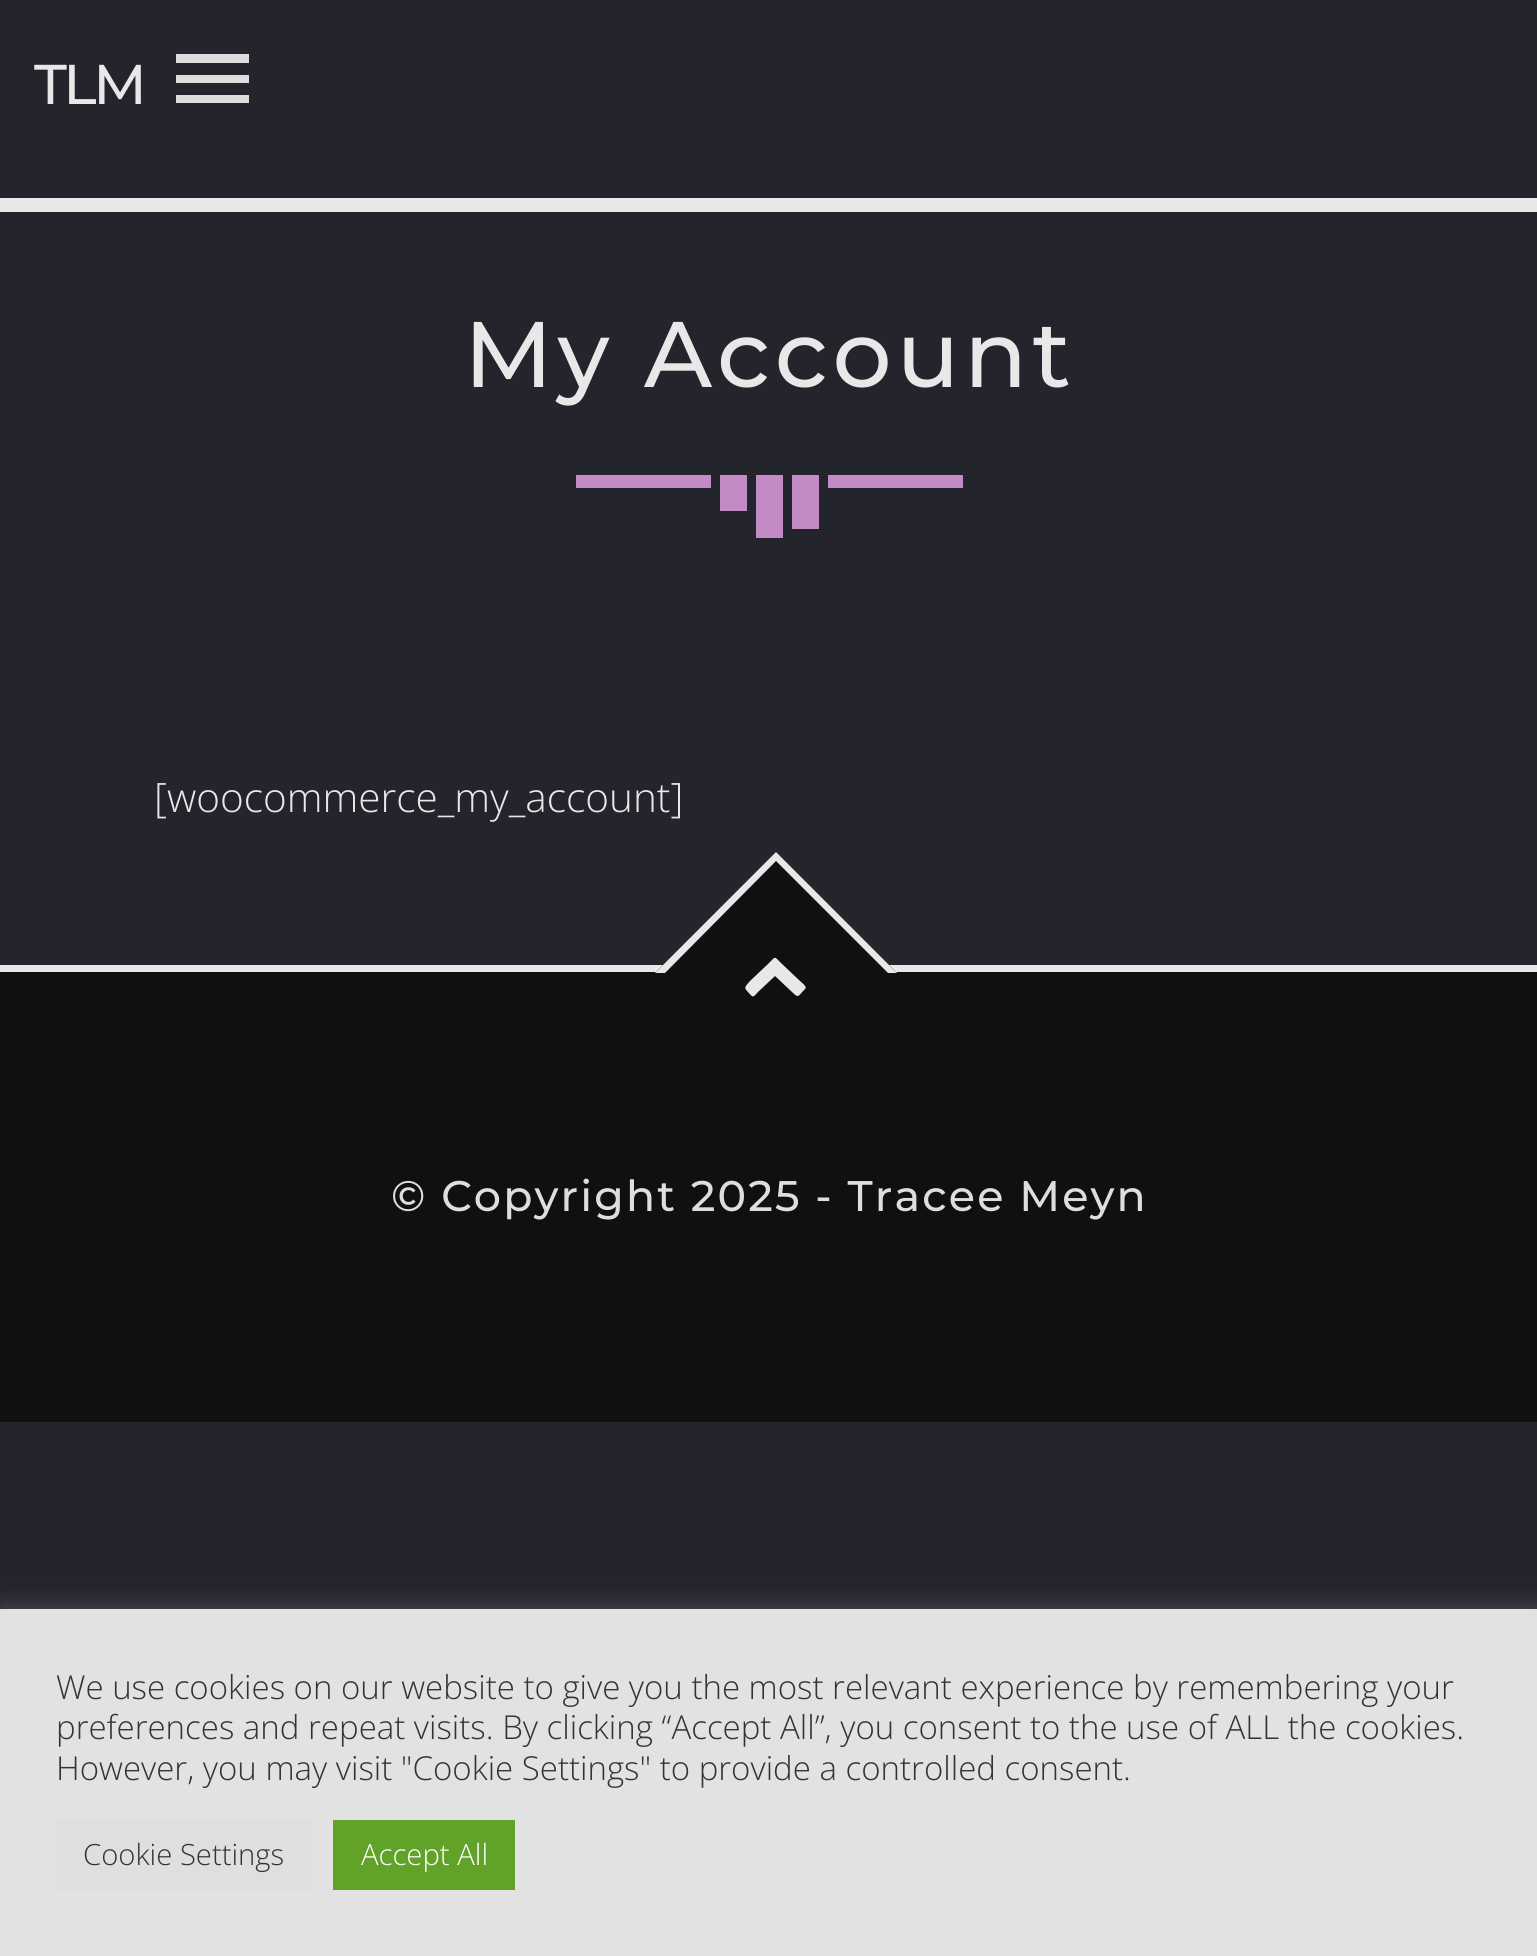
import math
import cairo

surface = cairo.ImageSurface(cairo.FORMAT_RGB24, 1537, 1956)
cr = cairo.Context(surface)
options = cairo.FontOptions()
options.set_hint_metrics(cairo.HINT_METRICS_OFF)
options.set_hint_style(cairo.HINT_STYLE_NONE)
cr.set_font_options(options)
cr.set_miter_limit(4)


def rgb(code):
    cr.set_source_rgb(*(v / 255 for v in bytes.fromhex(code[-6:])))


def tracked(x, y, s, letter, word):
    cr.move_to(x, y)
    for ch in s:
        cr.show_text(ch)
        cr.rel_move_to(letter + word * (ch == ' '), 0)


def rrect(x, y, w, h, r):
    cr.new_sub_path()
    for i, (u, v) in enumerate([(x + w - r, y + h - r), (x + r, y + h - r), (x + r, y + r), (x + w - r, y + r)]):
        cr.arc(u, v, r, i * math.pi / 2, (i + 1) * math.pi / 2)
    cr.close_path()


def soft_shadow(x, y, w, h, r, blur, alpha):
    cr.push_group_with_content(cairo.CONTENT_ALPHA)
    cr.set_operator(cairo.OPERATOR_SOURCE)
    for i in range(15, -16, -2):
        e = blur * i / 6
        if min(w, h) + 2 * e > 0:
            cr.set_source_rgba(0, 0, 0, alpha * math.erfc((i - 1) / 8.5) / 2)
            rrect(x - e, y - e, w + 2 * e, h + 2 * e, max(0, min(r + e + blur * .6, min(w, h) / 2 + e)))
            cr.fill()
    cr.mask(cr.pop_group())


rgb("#24242d")
cr.paint()
rgb("#dedede")
cr.new_path()
cr.move_to(176, 103)
cr.line_to(249, 103)
cr.line_to(249, 95)
cr.line_to(176, 95)
cr.close_path()
cr.move_to(176, 83)
cr.line_to(249, 83)
cr.line_to(249, 75)
cr.line_to(176, 75)
cr.close_path()
cr.move_to(176, 54)
cr.line_to(176, 63)
cr.line_to(249, 63)
cr.line_to(249, 54)
cr.close_path()
cr.fill()
for x, y, w, h, color in [
    (0, 198, 1537, 14, "#e8e8e8"),
    (576, 475, 135, 13, "#c48ac5"),
    (756, 475, 27, 63, "#c48ac5"),
    (720, 475, 27, 36, "#c48ac5"),
    (792, 475, 27, 54, "#c48ac5"),
    (828, 475, 135, 13, "#c48ac5"),
    (0, 972, 1537, 450, "#101010"),
    (0, 965, 1537, 7, "#e8e8e8"),
]:
    rgb(color)
    cr.rectangle(x, y, w, h)
    cr.fill()
rgb("#101010")
cr.new_path()
cr.move_to(776, 852)
cr.line_to(897, 973)
cr.line_to(776, 1094)
cr.line_to(655, 973)
cr.close_path()
cr.fill()
rgb("#e8e8e8")
cr.new_path()
cr.move_to(776, 852)
cr.line_to(897, 973)
cr.line_to(888, 973)
cr.line_to(776, 861)
cr.close_path()
cr.fill()
cr.new_path()
cr.move_to(655, 973)
cr.line_to(776, 852)
cr.line_to(776, 861)
cr.line_to(665, 973)
cr.close_path()
cr.fill()
cr.new_path()
cr.move_to(805, 989)
cr.curve_to(798, 996, 799, 999, 792, 992)
cr.line_to(775, 976)
cr.line_to(758, 992)
cr.curve_to(752, 999, 753, 997, 747, 991)
cr.curve_to(743, 987, 747, 985, 750, 981)
cr.line_to(769, 963)
cr.curve_to(776, 956, 774, 956, 781, 963)
cr.line_to(800, 981)
cr.curve_to(801, 982, 808, 987, 805, 989)
cr.close_path()
cr.fill()
rgb("#acabab")
soft_shadow(0, 1607, 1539, 348, 0, 11, 0.3)
for x, y, w, h, color in [
    (0, 1609, 1537, 347, "#e2e2e2"),
    (56, 1820, 255, 70, "#dedfe0"),
    (333, 1820, 182, 70, "#61a229"),
]:
    rgb(color)
    cr.rectangle(x, y, w, h)
    cr.fill()
cr.select_font_face("Montserrat Medium")
cr.set_font_size(56)
rgb("#e8e8e8")
tracked(34, 104, "TLM", -3.5, 0)
cr.set_font_size(93)
tracked(464, 387, "My Account", 4.75, 0)
cr.select_font_face("Open Sans Light")
cr.set_font_size(40.5)
cr.move_to(154, 812)
cr.show_text("[woocommerce_my_account]")
cr.select_font_face("Montserrat Medium")
cr.set_font_size(42.8)
rgb("#dedede")
tracked(391, 1211, "© Copyright 2025 - Tracee Meyn", 2.15, 0)
cr.select_font_face("Open Sans Light")
cr.set_font_size(33)
rgb("#333333")
for x, y, s in [
    (56, 1699, "We use cookies on our website to give you the most relevant experience by remembering your"),
    (56, 1739, "preferences and repeat visits. By clicking “Accept All”, you consent to the use of ALL the cookies."),
    (56, 1780, "However, you may visit \"Cookie Settings\" to provide a controlled consent."),
]:
    cr.move_to(x, y)
    cr.show_text(s)
cr.set_font_size(29.25)
cr.move_to(83, 1865)
cr.show_text("Cookie Settings")
rgb("#ffffff")
cr.move_to(361, 1865)
cr.show_text("Accept All")
surface.write_to_png("page.png")
